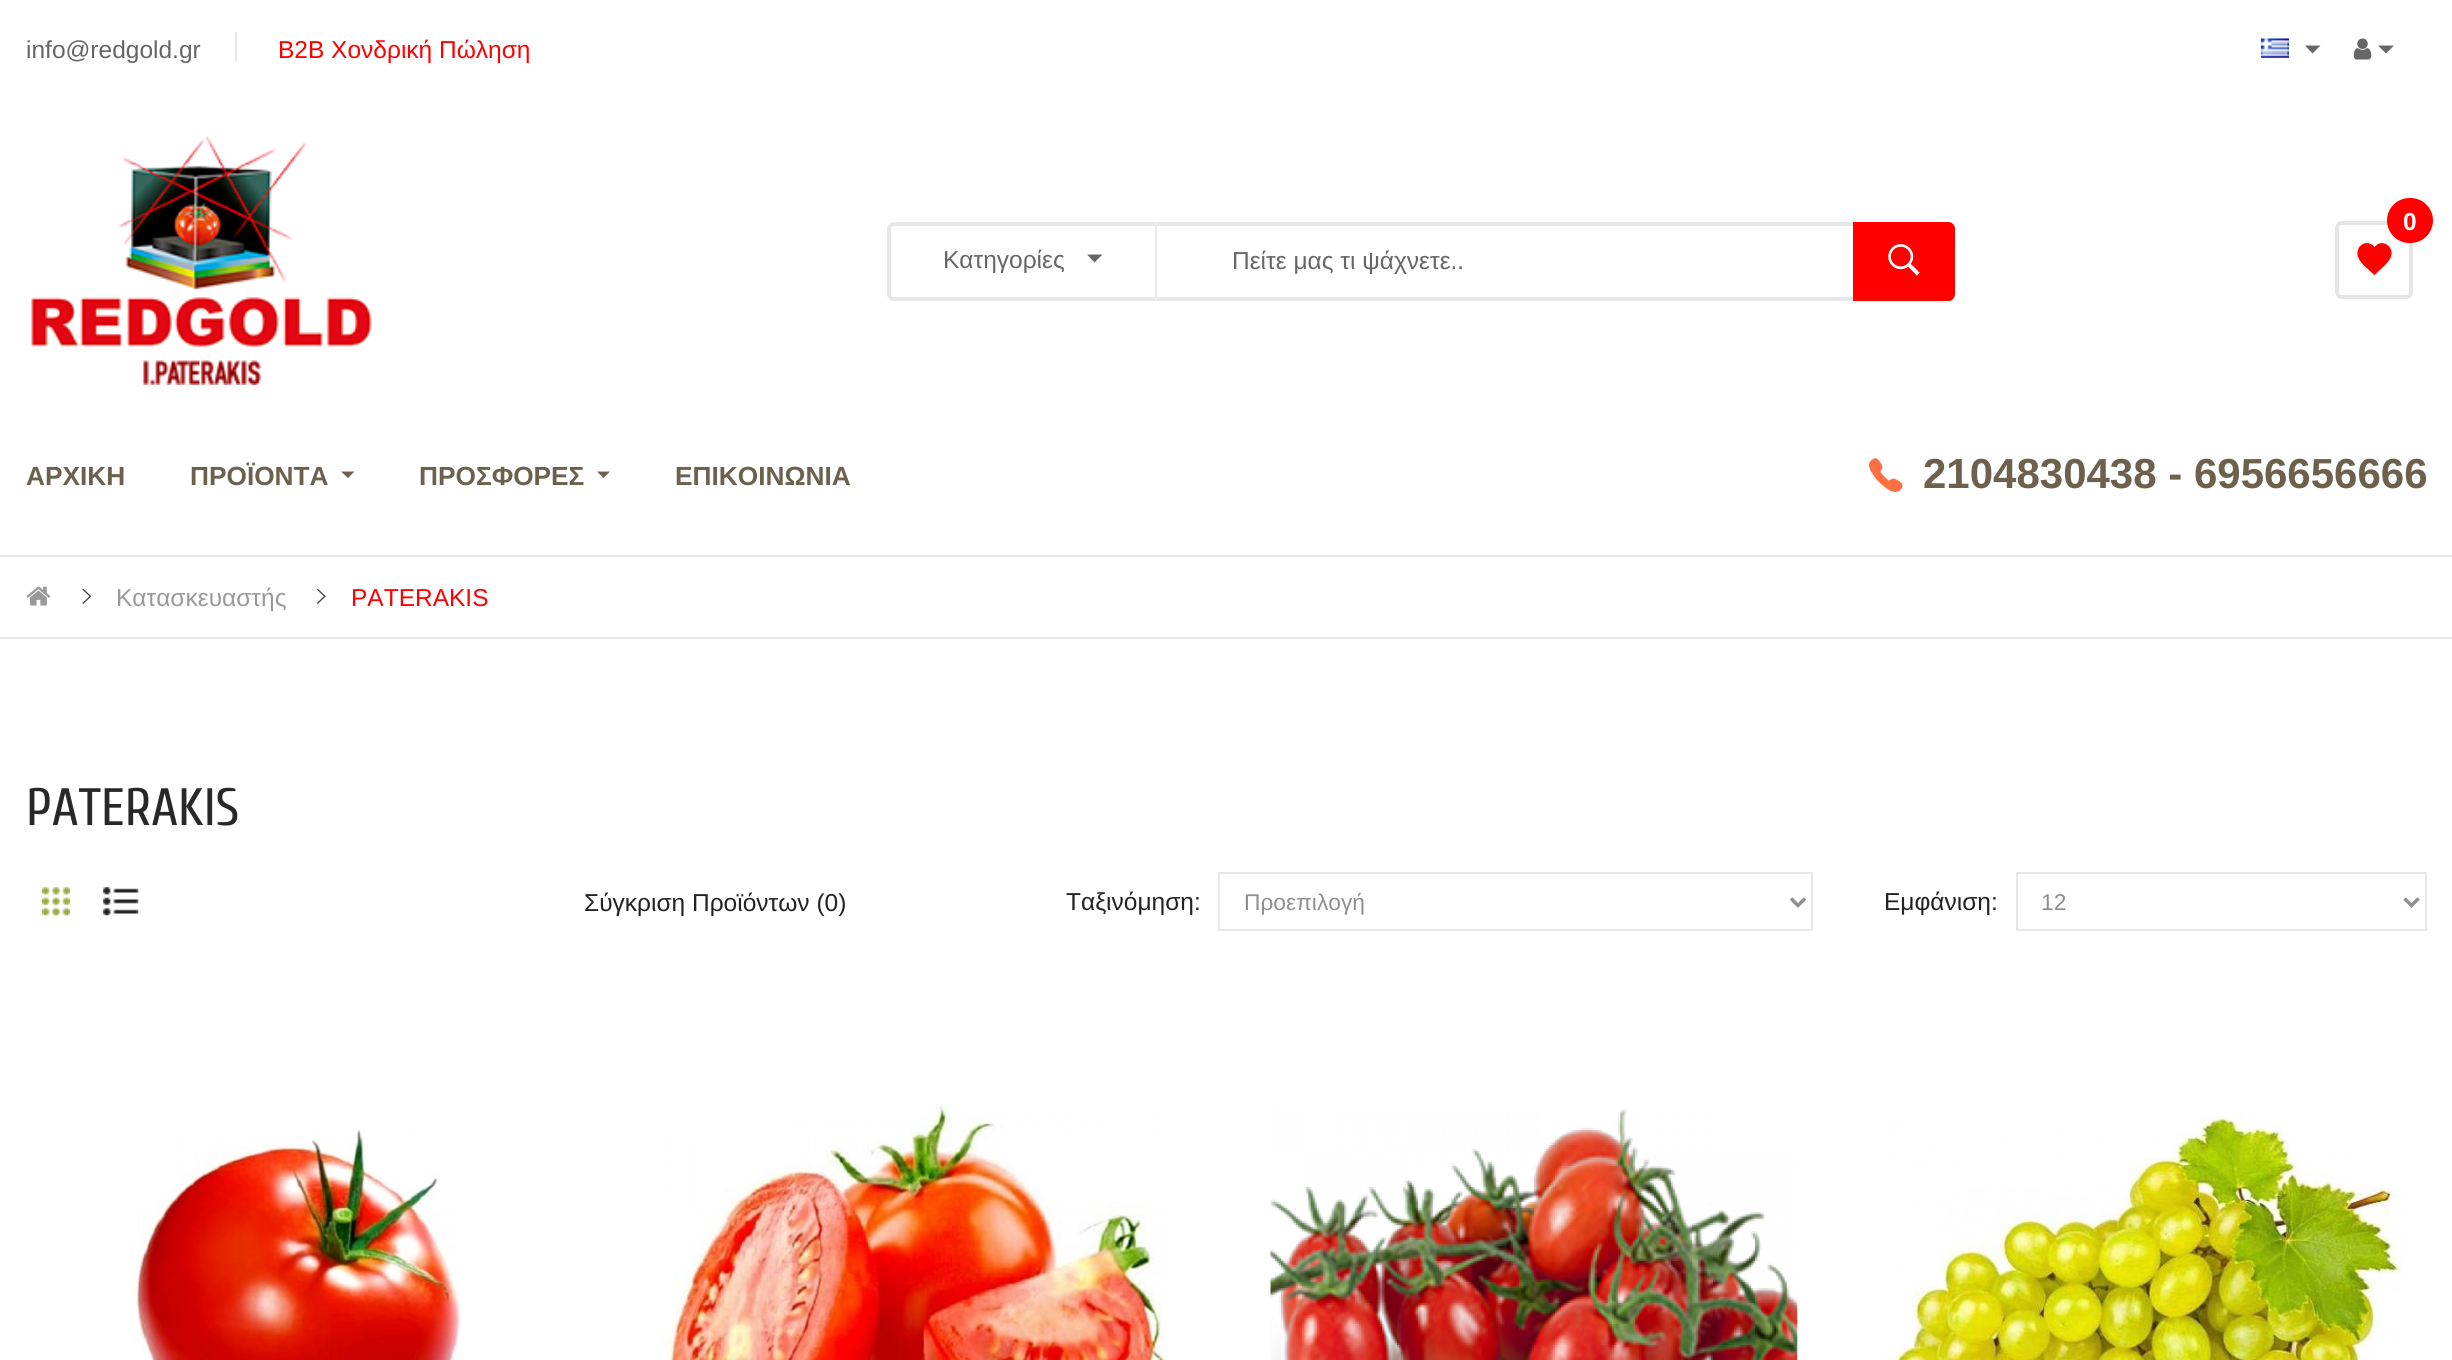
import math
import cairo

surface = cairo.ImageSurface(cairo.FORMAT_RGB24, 2452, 1360)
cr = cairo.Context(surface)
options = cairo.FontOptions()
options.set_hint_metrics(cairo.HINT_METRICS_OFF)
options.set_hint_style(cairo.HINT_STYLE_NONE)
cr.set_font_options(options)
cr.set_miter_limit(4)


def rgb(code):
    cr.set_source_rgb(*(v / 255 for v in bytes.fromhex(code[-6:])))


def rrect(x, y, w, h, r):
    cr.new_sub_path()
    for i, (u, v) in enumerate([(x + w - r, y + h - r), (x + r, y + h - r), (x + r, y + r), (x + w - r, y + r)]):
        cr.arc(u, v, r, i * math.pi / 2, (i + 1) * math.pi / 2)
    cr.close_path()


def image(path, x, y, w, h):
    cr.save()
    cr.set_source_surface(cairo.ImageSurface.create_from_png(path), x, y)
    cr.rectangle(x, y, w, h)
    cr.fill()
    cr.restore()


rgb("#ffffff")
cr.paint()
rgb("#e6e6e6")
cr.rectangle(235, 32, 2, 29)
cr.fill()
image("img/1.png", 2261, 38, 28, 20)
rgb("#666666")
cr.new_path()
cr.move_to(2305, 45.5)
cr.line_to(2320.5, 45.5)
cr.line_to(2312.5, 53.5)
cr.close_path()
cr.fill()
image("img/2.png", 2353, 38, 19, 22)
cr.new_path()
cr.move_to(2378, 45.5)
cr.line_to(2394, 45.5)
cr.line_to(2386, 53.5)
cr.close_path()
cr.fill()
image("img/3.png", 31, 136, 341, 249)
rrect(2337, 223, 74, 74, 5)
rgb("#e5e5e5")
cr.set_line_width(4)
cr.stroke()
rgb("#ff0000")
rrect(2387, 198, 46, 45, 22.5)
cr.fill()
cr.new_path()
cr.move_to(2374.5, 275)
cr.curve_to(2369.5, 270.5, 2361, 264, 2358.5, 258)
cr.curve_to(2353.5, 247, 2366.5, 237.5, 2374.5, 247)
cr.curve_to(2382, 237.5, 2395.5, 247, 2390.5, 258)
cr.curve_to(2387.5, 264, 2379, 270.5, 2374.5, 275)
cr.close_path()
cr.fill()
rrect(889, 224, 1064, 75, 5)
rgb("#e7e7e7")
cr.stroke()
rgb("#ebebeb")
cr.rectangle(1155, 222, 2, 79)
cr.fill()
rgb("#666666")
cr.new_path()
cr.move_to(1087, 254.5)
cr.line_to(1102.5, 254.5)
cr.line_to(1094.5, 262.5)
cr.close_path()
cr.fill()
rgb("#ff0000")
cr.new_path()
cr.move_to(1853, 222)
cr.line_to(1948, 222)
cr.curve_to(1952, 222, 1955, 225, 1955, 229)
cr.line_to(1955, 294)
cr.curve_to(1955, 298, 1952, 301, 1948, 301)
cr.line_to(1853, 301)
cr.close_path()
cr.fill()
image("img/4.png", 1888, 244, 32, 32)
rgb("#6d604c")
cr.new_path()
cr.move_to(341, 471.5)
cr.line_to(354.5, 471.5)
cr.line_to(348, 478)
cr.close_path()
cr.fill()
cr.new_path()
cr.move_to(597, 471.5)
cr.line_to(610, 471.5)
cr.line_to(603.5, 478)
cr.close_path()
cr.fill()
image("img/5.png", 1869, 458, 34, 34)
rgb("#e5e5e5")
cr.rectangle(0, 555, 2452, 2)
cr.fill()
cr.rectangle(0, 637, 2452, 2)
cr.fill()
image("img/6.png", 26, 586, 25, 20)
image("img/7.png", 82, 588, 10, 16)
image("img/8.png", 316, 588, 10, 16)
image("img/9.png", 42, 887, 28, 29)
image("img/10.png", 103, 887, 36, 29)
cr.rectangle(1219, 873, 593, 57)
rgb("#e7e7e7")
cr.set_line_width(2)
cr.stroke()
cr.new_path()
cr.move_to(1791, 898.5)
cr.line_to(1798, 905.5)
cr.line_to(1805, 898.5)
rgb("#908f8f")
cr.set_line_width(3.5)
cr.stroke()
cr.rectangle(2017, 873, 409, 57)
rgb("#e7e7e7")
cr.set_line_width(2)
cr.stroke()
cr.new_path()
cr.move_to(2404.5, 898.5)
cr.line_to(2411.5, 905.5)
cr.line_to(2418.5, 898.5)
rgb("#908f8f")
cr.set_line_width(3.5)
cr.stroke()
image("img/11.png", 131, 1130, 331, 230)
image("img/12.png", 658, 1104, 512, 256)
image("img/13.png", 1270, 1109, 528, 251)
image("img/14.png", 1885, 1116, 518, 244)
cr.select_font_face("Liberation Sans")
cr.set_font_size(24.5)
rgb("#666666")
cr.move_to(26, 58)
cr.show_text("info@redgold.gr")
rgb("#ff0000")
cr.move_to(278, 58)
cr.show_text("Β2B Χονδρική Πώληση")
cr.select_font_face("Liberation Sans", cairo.FONT_SLANT_NORMAL, cairo.FONT_WEIGHT_BOLD)
rgb("#ffffff")
cr.move_to(2403, 230)
cr.show_text("0")
cr.select_font_face("Liberation Sans")
rgb("#666666")
cr.move_to(943, 268)
cr.show_text("Κατηγορίες")
cr.move_to(1232, 269)
cr.show_text("Πείτε μας τι ψάχνετε..")
cr.select_font_face("Liberation Sans", cairo.FONT_SLANT_NORMAL, cairo.FONT_WEIGHT_BOLD)
cr.set_font_size(26.25)
rgb("#6d604c")
for x, y, s in [
    (26, 485, "ΑΡΧΙΚΗ"),
    (190, 485, "ΠΡΟΪΟΝΤΑ"),
    (419, 485, "ΠΡΟΣΦΟΡΕΣ"),
    (675, 485, "ΕΠΙΚΟΙΝΩΝΙΑ"),
]:
    cr.move_to(x, y)
    cr.show_text(s)
cr.set_font_size(42)
cr.move_to(1923, 488)
cr.show_text("2104830438 - 6956656666")
cr.select_font_face("Liberation Sans")
cr.set_font_size(24.5)
rgb("#999999")
cr.move_to(116, 606)
cr.show_text("Κατασκευαστής")
rgb("#ff0000")
cr.move_to(351, 606)
cr.show_text("PATERAKIS")
cr.select_font_face("Cuprum")
cr.set_font_size(52.5)
rgb("#282828")
cr.move_to(26, 825)
cr.show_text("PATERAKIS")
cr.select_font_face("Liberation Sans")
cr.set_font_size(24.5)
rgb("#222222")
cr.move_to(584, 911)
cr.show_text("Σύγκριση Προϊόντων (0)")
cr.move_to(1066, 910)
cr.show_text("Ταξινόμηση:")
cr.set_font_size(22.75)
rgb("#908f8f")
cr.move_to(1244, 910)
cr.show_text("Προεπιλογή")
cr.set_font_size(24.5)
rgb("#222222")
cr.move_to(1884, 910)
cr.show_text("Εμφάνιση:")
cr.set_font_size(22.75)
rgb("#908f8f")
cr.move_to(2041, 910)
cr.show_text("12")
surface.write_to_png("page.png")
